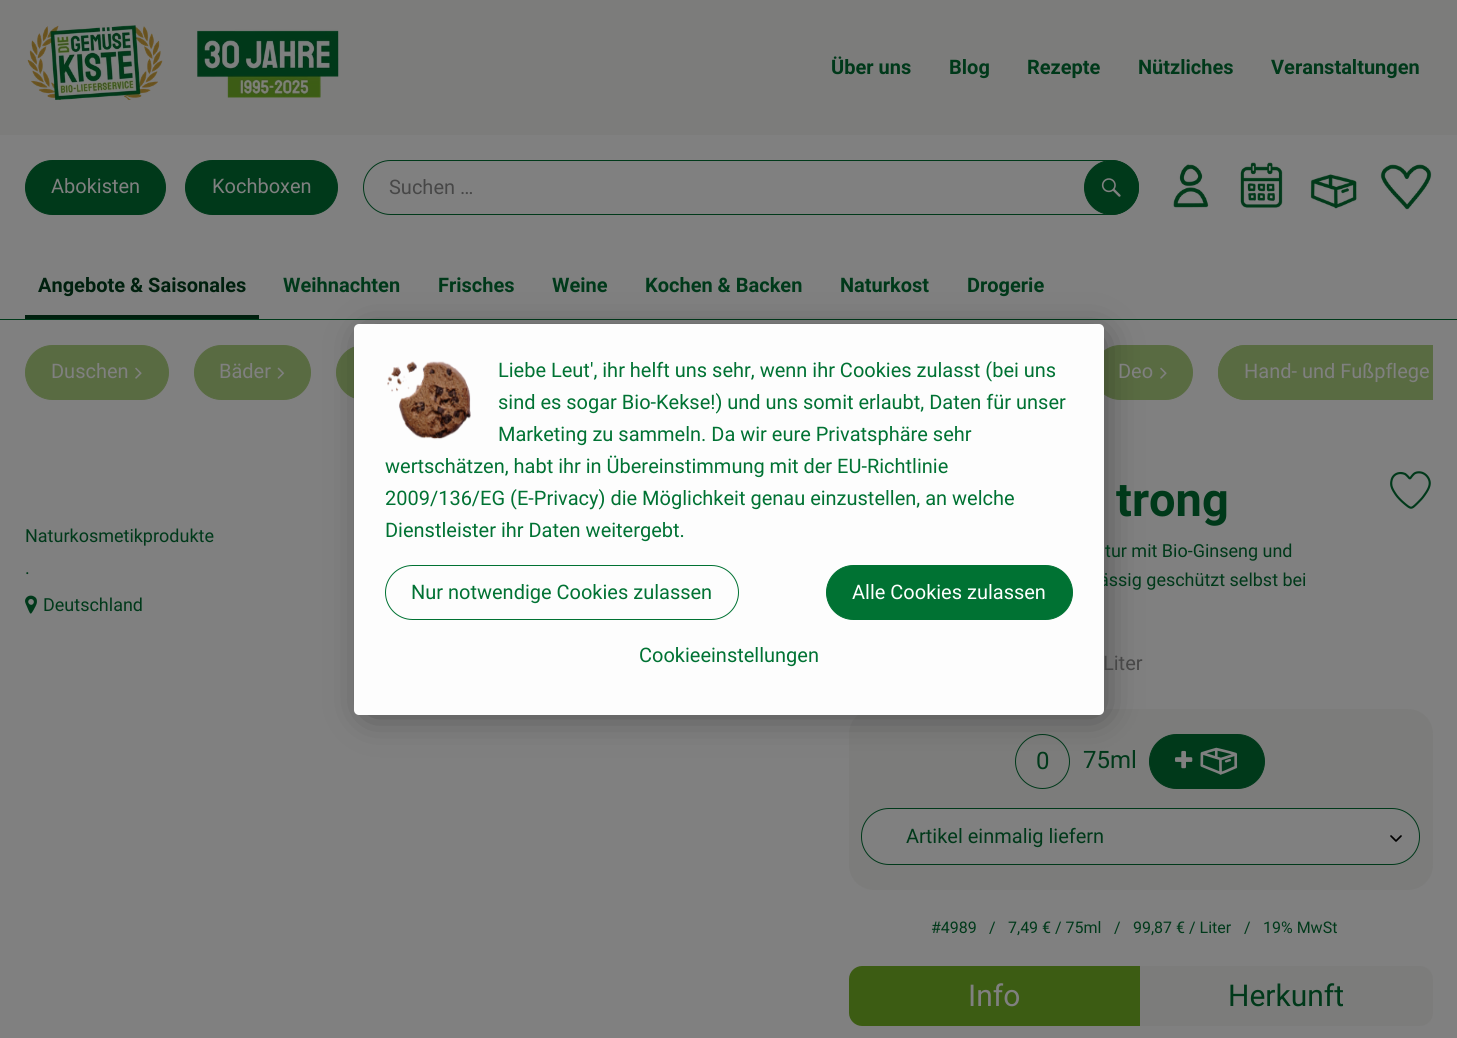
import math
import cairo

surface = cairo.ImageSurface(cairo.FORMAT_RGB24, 1457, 1038)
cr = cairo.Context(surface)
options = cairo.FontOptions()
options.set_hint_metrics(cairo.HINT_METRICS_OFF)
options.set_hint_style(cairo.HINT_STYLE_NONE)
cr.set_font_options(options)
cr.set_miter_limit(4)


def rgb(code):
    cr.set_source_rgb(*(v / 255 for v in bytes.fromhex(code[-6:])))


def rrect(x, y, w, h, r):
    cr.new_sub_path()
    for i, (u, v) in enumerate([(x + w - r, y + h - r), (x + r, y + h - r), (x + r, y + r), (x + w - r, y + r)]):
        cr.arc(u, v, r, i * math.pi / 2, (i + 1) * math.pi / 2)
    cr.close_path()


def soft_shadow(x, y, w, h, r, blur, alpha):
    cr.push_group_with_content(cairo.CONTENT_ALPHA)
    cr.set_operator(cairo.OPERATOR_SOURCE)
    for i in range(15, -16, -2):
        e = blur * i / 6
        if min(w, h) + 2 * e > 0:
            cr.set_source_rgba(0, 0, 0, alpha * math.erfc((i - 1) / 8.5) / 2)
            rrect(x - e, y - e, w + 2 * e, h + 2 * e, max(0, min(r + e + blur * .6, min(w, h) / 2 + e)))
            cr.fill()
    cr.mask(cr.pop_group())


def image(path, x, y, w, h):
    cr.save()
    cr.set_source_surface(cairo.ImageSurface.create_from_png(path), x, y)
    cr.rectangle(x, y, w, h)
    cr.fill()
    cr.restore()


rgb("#808080")
cr.paint()
rgb("#7c7c7b")
cr.rectangle(0, 0, 1457, 135)
cr.fill()
image("img/1.png", 27, 25, 312, 75)
rgb("#00391a")
rrect(25.5, 160.5, 140, 54, 27)
cr.fill_preserve()
cr.set_line_width(1)
cr.stroke()
rrect(185.5, 160.5, 152, 54, 27)
cr.fill_preserve()
cr.stroke()
rrect(363.5, 160.5, 775, 54, 27)
cr.stroke()
cr.arc(1111.5, 187.5, 27, 0, 2 * math.pi)
cr.fill_preserve()
cr.stroke()
image("img/2.png", 1101, 178, 20, 19)
image("img/3.png", 1173, 164, 36, 44)
image("img/4.png", 1240, 162, 43, 46)
image("img/5.png", 1310, 174, 47, 35)
image("img/6.png", 1380, 164, 52, 46)
cr.rectangle(0, 319, 1457, 1)
cr.fill()
rgb("#00200e")
cr.rectangle(25, 315, 234, 4)
cr.fill()
rgb("#596b42")
rrect(25.5, 345.5, 143, 54, 27)
cr.fill_preserve()
cr.stroke()
image("img/7.png", 135, 367, 7, 12)
rrect(194.5, 345.5, 116, 54, 27)
cr.fill_preserve()
cr.stroke()
image("img/8.png", 277, 367, 8, 12)
rrect(336.5, 345.5, 302, 54, 27)
cr.fill_preserve()
cr.stroke()
rrect(1093.5, 345.5, 99, 54, 27)
cr.fill_preserve()
cr.stroke()
image("img/7.png", 1160, 367, 7, 12)
cr.new_path()
cr.move_to(1245.5, 345)
cr.line_to(1433, 345)
cr.line_to(1433, 400)
cr.line_to(1245.5, 400)
cr.curve_to(1230.5, 400, 1218, 387.5, 1218, 372.5)
cr.curve_to(1218, 357.5, 1230.5, 345, 1245.5, 345)
cr.close_path()
cr.fill()
cr.save()
cr.rectangle(25, 320, 1408, 105)
cr.clip()
rrect(1218.5, 345.5, 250, 54, 27)
cr.stroke()
cr.restore()
image("img/9.png", 25, 595, 12, 19)
image("img/10.png", 1390, 471, 41, 38)
rgb("#7c7c7b")
rrect(849, 709, 584, 181, 25)
cr.fill()
cr.arc(1042.5, 761.5, 27, 0, 2 * math.pi)
rgb("#00391a")
cr.stroke()
rrect(1149.5, 734.5, 115, 54, 27)
cr.fill_preserve()
cr.stroke()
image("img/11.png", 1175, 750, 18, 19)
image("img/12.png", 1200, 747, 38, 28)
rgb("#808080")
rrect(861.5, 808.5, 558, 56, 27.5)
cr.fill_preserve()
rgb("#00391a")
cr.stroke()
cr.new_path()
cr.move_to(1391, 836)
cr.line_to(1396, 841)
cr.line_to(1401, 836)
rgb("#000000")
cr.set_line_width(1.7)
cr.set_line_cap(cairo.LINE_CAP_ROUND)
cr.set_line_join(cairo.LINE_JOIN_ROUND)
cr.stroke()
rgb("#3c5c13")
cr.new_path()
cr.move_to(862, 966)
cr.line_to(1140, 966)
cr.line_to(1140, 1026)
cr.line_to(862, 1026)
cr.curve_to(855, 1026, 849, 1020, 849, 1013)
cr.line_to(849, 979)
cr.curve_to(849, 972, 855, 966, 862, 966)
cr.close_path()
cr.fill()
rgb("#7c7c7b")
cr.new_path()
cr.move_to(1140, 966)
cr.line_to(1420, 966)
cr.curve_to(1427, 966, 1433, 972, 1433, 979)
cr.line_to(1433, 1013)
cr.curve_to(1433, 1020, 1427, 1026, 1420, 1026)
cr.line_to(1140, 1026)
cr.close_path()
cr.fill()
rgb("#000000")
soft_shadow(369, 339, 730, 371, 0, 19, 0.5)
cr.select_font_face("Roboto", cairo.FONT_SLANT_NORMAL, cairo.FONT_WEIGHT_BOLD)
cr.set_font_size(20)
rgb("#00391a")
for x, y, s in [
    (831, 74, "Über uns"),
    (949, 74, "Blog"),
    (1027, 74, "Rezepte"),
    (1138, 74, "Nützliches"),
    (1271, 74, "Veranstaltungen"),
]:
    cr.move_to(x, y)
    cr.show_text(s)
cr.select_font_face("Roboto")
rgb("#808080")
cr.move_to(51, 193)
cr.show_text("Abokisten")
cr.move_to(212, 193)
cr.show_text("Kochboxen")
rgb("#474747")
cr.move_to(389, 194)
cr.show_text("Suchen …")
cr.select_font_face("Roboto", cairo.FONT_SLANT_NORMAL, cairo.FONT_WEIGHT_BOLD)
rgb("#00200e")
cr.move_to(38, 292)
cr.show_text("Angebote & Saisonales")
rgb("#00391a")
for x, y, s in [
    (283, 292, "Weihnachten"),
    (438, 292, "Frisches"),
    (552, 292, "Weine"),
    (645, 292, "Kochen & Backen"),
    (840, 292, "Naturkost"),
    (967, 292, "Drogerie"),
]:
    cr.move_to(x, y)
    cr.show_text(s)
cr.select_font_face("Roboto")
rgb("#808080")
for x, y, s in [
    (51, 378, "Duschen"),
    (219, 378, "Bäder"),
    (1118, 378, "Deo"),
    (1244, 378, "Hand- und Fußpflege"),
]:
    cr.move_to(x, y)
    cr.show_text(s)
cr.set_font_size(18)
rgb("#00391a")
for x, y, s in [
    (25, 542, "Naturkosmetikprodukte"),
    (25, 574, "."),
    (43, 611, "Deutschland"),
]:
    cr.move_to(x, y)
    cr.show_text(s)
cr.select_font_face("Roboto", cairo.FONT_SLANT_NORMAL, cairo.FONT_WEIGHT_BOLD)
cr.set_font_size(47)
cr.move_to(1116, 516)
cr.show_text("trong")
cr.select_font_face("Roboto")
cr.set_font_size(18)
cr.move_to(1105, 557)
cr.show_text("tur mit Bio-Ginseng und")
cr.move_to(1099, 586)
cr.show_text("ässig geschützt selbst bei")
cr.set_font_size(20)
rgb("#474747")
cr.move_to(1103, 670)
cr.show_text("Liter")
cr.set_font_size(24)
rgb("#00391a")
cr.move_to(1036, 769)
cr.show_text("0")
cr.move_to(1083, 768)
cr.show_text("75ml")
cr.set_font_size(20)
cr.move_to(906, 843)
cr.show_text("Artikel einmalig liefern")
cr.set_font_size(16)
for x, y, s in [
    (931, 933, "#4989"),
    (989, 933, "/"),
    (1008, 933, "7,49 € / 75ml"),
    (1114, 933, "/"),
    (1133, 933, "99,87 € / Liter"),
    (1244, 933, "/"),
    (1263, 933, "19% MwSt"),
]:
    cr.move_to(x, y)
    cr.show_text(s)
cr.set_font_size(30)
rgb("#808080")
cr.move_to(968, 1006)
cr.show_text("Info")
rgb("#00391a")
cr.move_to(1228, 1006)
cr.show_text("Herkunft")
rgb("#fdfdfd")
rrect(354, 324, 750, 391, 5)
cr.fill()
image("img/13.png", 387, 361, 84, 79)
cr.set_font_size(20)
rgb("#007233")
for x, y, s in [
    (498, 377, "Liebe Leut', ihr helft uns sehr, wenn ihr Cookies zulasst (bei uns"),
    (498, 409, "sind es sogar Bio-Kekse!) und uns somit erlaubt, Daten für unser"),
    (498, 441, "Marketing zu sammeln. Da wir eure Privatsphäre sehr"),
    (385, 473, "wertschätzen, habt ihr in Übereinstimmung mit der EU-Richtlinie"),
    (385, 505, "2009/136/EG (E-Privacy) die Möglichkeit genau einzustellen, an welche"),
    (385, 537, "Dienstleister ihr Daten weitergebt."),
]:
    cr.move_to(x, y)
    cr.show_text(s)
rrect(385.5, 565.5, 353, 54, 27)
cr.set_line_width(1)
cr.set_line_cap(cairo.LINE_CAP_BUTT)
cr.set_line_join(cairo.LINE_JOIN_MITER)
cr.stroke()
cr.move_to(411, 599)
cr.show_text("Nur notwendige Cookies zulassen")
rrect(826.5, 565.5, 246, 54, 27)
cr.fill_preserve()
cr.stroke()
rgb("#ffffff")
cr.move_to(852, 599)
cr.show_text("Alle Cookies zulassen")
rgb("#007233")
cr.move_to(639, 662)
cr.show_text("Cookieeinstellungen")
surface.write_to_png("page.png")
